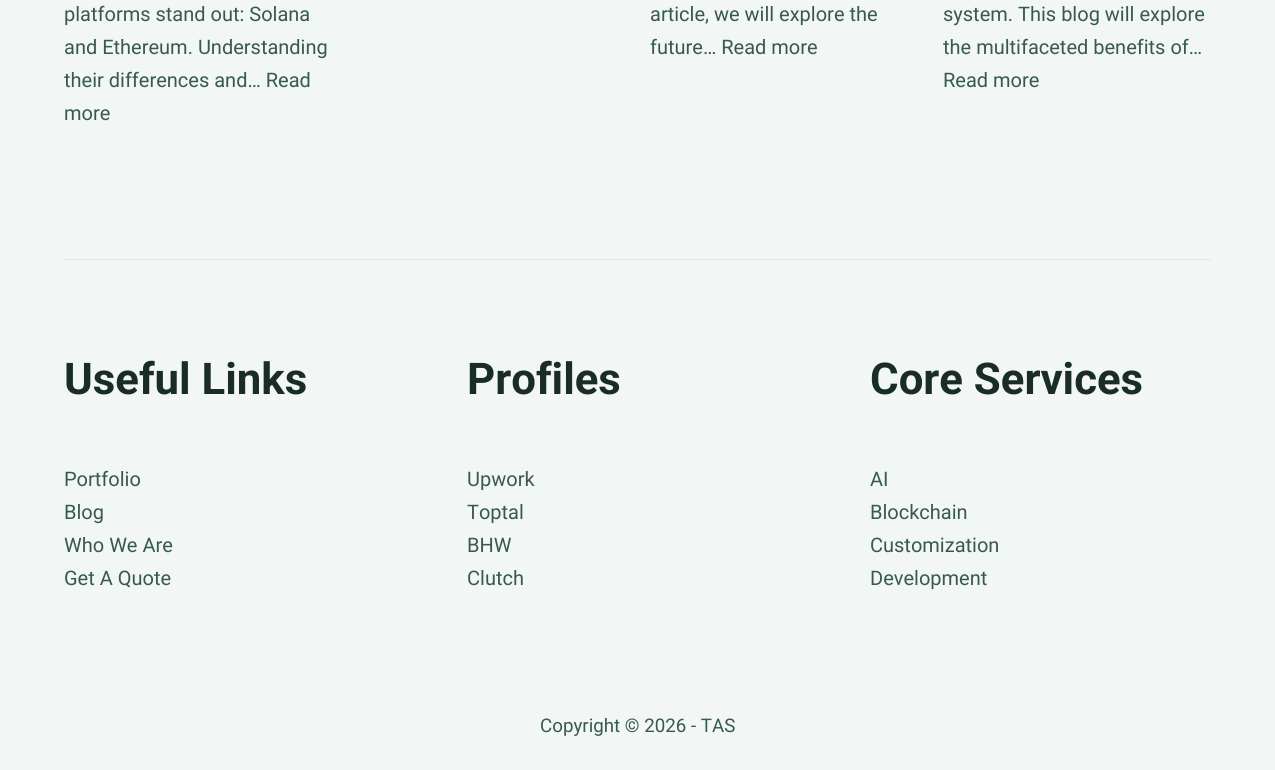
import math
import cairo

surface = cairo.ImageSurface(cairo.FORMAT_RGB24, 1275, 770)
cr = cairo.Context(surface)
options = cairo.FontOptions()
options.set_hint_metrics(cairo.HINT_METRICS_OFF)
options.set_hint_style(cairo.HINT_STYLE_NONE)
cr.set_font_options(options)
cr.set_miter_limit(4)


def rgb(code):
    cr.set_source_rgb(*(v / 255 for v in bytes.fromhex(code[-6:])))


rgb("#f2f7f6")
cr.paint()
rgb("#deebe8")
cr.rectangle(64, 259, 1147, 1)
cr.fill()
cr.select_font_face("Roboto")
cr.set_font_size(20)
rgb("#365951")
for x, y, s in [
    (64, 21, "platforms stand out: Solana"),
    (64, 54, "and Ethereum. Understanding"),
    (64, 87, "their differences and… Read"),
    (64, 120, "more"),
    (650, 21, "article, we will explore the"),
    (650, 54, "future… Read more"),
    (943, 21, "system. This blog will explore"),
    (943, 54, "the multifaceted benefits of…"),
    (943, 87, "Read more"),
]:
    cr.move_to(x, y)
    cr.show_text(s)
cr.select_font_face("Roboto", cairo.FONT_SLANT_NORMAL, cairo.FONT_WEIGHT_BOLD)
cr.set_font_size(43.75)
rgb("#192c27")
cr.move_to(64, 394)
cr.show_text("Useful Links")
cr.select_font_face("Roboto")
cr.set_font_size(20)
rgb("#365951")
for x, y, s in [
    (64, 486, "Portfolio"),
    (64, 519, "Blog"),
    (64, 552, "Who We Are"),
    (64, 585, "Get A Quote"),
]:
    cr.move_to(x, y)
    cr.show_text(s)
cr.select_font_face("Roboto", cairo.FONT_SLANT_NORMAL, cairo.FONT_WEIGHT_BOLD)
cr.set_font_size(43.75)
rgb("#192c27")
cr.move_to(467, 394)
cr.show_text("Profiles")
cr.select_font_face("Roboto")
cr.set_font_size(20)
rgb("#365951")
for x, y, s in [
    (467, 486, "Upwork"),
    (467, 519, "Toptal"),
    (467, 552, "BHW"),
    (467, 585, "Clutch"),
]:
    cr.move_to(x, y)
    cr.show_text(s)
cr.select_font_face("Roboto", cairo.FONT_SLANT_NORMAL, cairo.FONT_WEIGHT_BOLD)
cr.set_font_size(43.75)
rgb("#192c27")
cr.move_to(870, 394)
cr.show_text("Core Services")
cr.select_font_face("Roboto")
cr.set_font_size(20)
rgb("#365951")
for x, y, s in [
    (870, 486, "AI"),
    (870, 519, "Blockchain"),
    (870, 552, "Customization"),
    (870, 585, "Development"),
]:
    cr.move_to(x, y)
    cr.show_text(s)
cr.set_font_size(18.75)
cr.move_to(540, 732)
cr.show_text("Copyright © 2026 - TAS")
surface.write_to_png("page.png")
